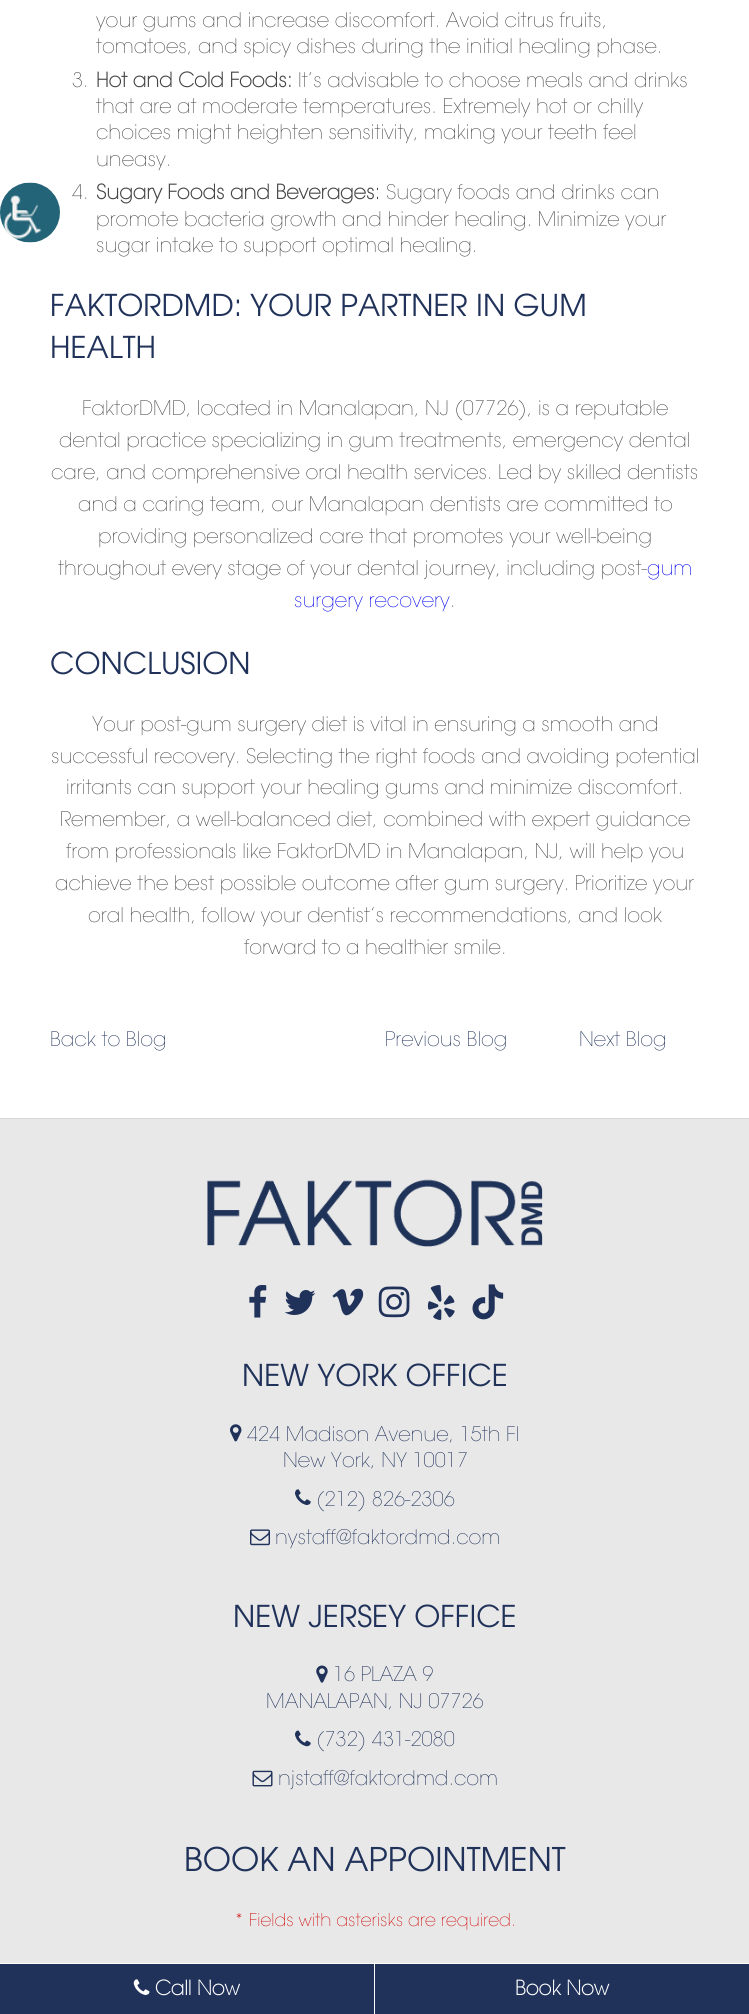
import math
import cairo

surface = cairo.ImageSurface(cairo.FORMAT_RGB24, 749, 2014)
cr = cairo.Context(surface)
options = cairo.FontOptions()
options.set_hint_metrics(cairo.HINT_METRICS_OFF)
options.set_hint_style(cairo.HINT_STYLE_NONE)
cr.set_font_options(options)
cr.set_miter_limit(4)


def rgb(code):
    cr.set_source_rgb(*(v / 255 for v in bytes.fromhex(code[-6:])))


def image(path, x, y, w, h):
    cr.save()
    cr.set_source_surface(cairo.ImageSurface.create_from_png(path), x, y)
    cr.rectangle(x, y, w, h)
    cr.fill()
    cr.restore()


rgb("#ffffff")
cr.paint()
image("img/1.png", 0, 182, 60, 61)
rgb("#d5d5d5")
cr.rectangle(0, 1118, 749, 1)
cr.fill()
rgb("#e8e8e8")
cr.rectangle(0, 1119, 749, 844)
cr.fill()
image("img/2.png", 207, 1179, 336, 68)
image("img/3.png", 249, 1285, 18, 33)
image("img/4.png", 284, 1290, 32, 25)
image("img/5.png", 332, 1288, 32, 28)
image("img/6.png", 378, 1286, 32, 32)
image("img/7.png", 427, 1285, 28, 35)
image("img/8.png", 472, 1284, 32, 36)
image("img/9.png", 230, 1424, 12, 18)
image("img/10.png", 295, 1489, 16, 16)
image("img/11.png", 250, 1529, 20, 17)
image("img/12.png", 316, 1665, 12, 18)
image("img/13.png", 295, 1730, 16, 17)
image("img/14.png", 252, 1770, 21, 17)
rgb("#20325a")
cr.rectangle(0, 1964, 374, 50)
cr.fill()
image("img/15.png", 133, 1979, 17, 16)
cr.rectangle(375, 1964, 374, 50)
cr.fill()
cr.select_font_face("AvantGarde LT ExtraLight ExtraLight")
cr.set_font_size(20)
rgb("#444444")
for x, y, s in [
    (96, 27, "your gums and increase discomfort. Avoid citrus fruits,"),
    (96, 53, "tomatoes, and spicy dishes during the initial healing phase."),
    (72, 87, "3."),
]:
    cr.move_to(x, y)
    cr.show_text(s)
cr.select_font_face("AvantGarde LT ExtraLight", cairo.FONT_SLANT_NORMAL, cairo.FONT_WEIGHT_BOLD)
cr.move_to(96, 87)
cr.show_text("Hot and Cold Foods:")
cr.select_font_face("AvantGarde LT ExtraLight ExtraLight")
for x, y, s in [
    (298, 87, "It’s advisable to choose meals and drinks"),
    (96, 113, "that are at moderate temperatures. Extremely hot or chilly"),
    (96, 139, "choices might heighten sensitivity, making your teeth feel"),
    (96, 166, "uneasy."),
    (72, 199, "4."),
]:
    cr.move_to(x, y)
    cr.show_text(s)
cr.select_font_face("AvantGarde LT ExtraLight", cairo.FONT_SLANT_NORMAL, cairo.FONT_WEIGHT_BOLD)
cr.move_to(96, 199)
cr.show_text("Sugary Foods and Beverages:")
cr.select_font_face("AvantGarde LT ExtraLight ExtraLight")
for x, y, s in [
    (386, 199, "Sugary foods and drinks can"),
    (96, 226, "promote bacteria growth and hinder healing. Minimize your"),
    (96, 252, "sugar intake to support optimal healing."),
]:
    cr.move_to(x, y)
    cr.show_text(s)
cr.select_font_face("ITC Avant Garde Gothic")
cr.set_font_size(30)
rgb("#20325a")
cr.move_to(50, 316)
cr.show_text("FAKTORDMD: YOUR PARTNER IN GUM")
cr.move_to(50, 358)
cr.show_text("HEALTH")
cr.select_font_face("AvantGarde LT ExtraLight ExtraLight")
cr.set_font_size(20)
rgb("#444444")
for x, y, s in [
    (82, 415, "FaktorDMD, located in Manalapan, NJ (07726), is a reputable"),
    (59, 447, "dental practice specializing in gum treatments, emergency dental"),
    (51, 479, "care, and comprehensive oral health services. Led by skilled dentists"),
    (78, 511, "and a caring team, our Manalapan dentists are committed to"),
    (98, 543, "providing personalized care that promotes your well-being"),
    (58, 575, "throughout every stage of your dental journey, including post-"),
]:
    cr.move_to(x, y)
    cr.show_text(s)
rgb("#0000ee")
cr.move_to(647, 575)
cr.show_text("gum")
cr.move_to(294, 607)
cr.show_text("surgery recovery")
rgb("#444444")
cr.move_to(450, 607)
cr.show_text(".")
cr.select_font_face("ITC Avant Garde Gothic")
cr.set_font_size(30)
rgb("#20325a")
cr.move_to(50, 674)
cr.show_text("CONCLUSION")
cr.select_font_face("AvantGarde LT ExtraLight ExtraLight")
cr.set_font_size(20)
rgb("#444444")
for x, y, s in [
    (92, 731, "Your post-gum surgery diet is vital in ensuring a smooth and"),
    (51, 763, "successful recovery. Selecting the right foods and avoiding potential"),
    (66, 794, "irritants can support your healing gums and minimize discomfort."),
    (60, 826, "Remember, a well-balanced diet, combined with expert guidance"),
    (66, 858, "from professionals like FaktorDMD in Manalapan, NJ, will help you"),
    (55, 890, "achieve the best possible outcome after gum surgery. Prioritize your"),
    (88, 922, "oral health, follow your dentist’s recommendations, and look"),
    (244, 954, "forward to a healthier smile."),
]:
    cr.move_to(x, y)
    cr.show_text(s)
rgb("#20325a")
for x, y, s in [
    (50, 1046, "Back to Blog"),
    (385, 1046, "Previous Blog"),
    (579, 1046, "Next Blog"),
]:
    cr.move_to(x, y)
    cr.show_text(s)
cr.select_font_face("ITC Avant Garde Gothic")
cr.set_font_size(30)
cr.move_to(242, 1386)
cr.show_text("NEW YORK OFFICE")
cr.select_font_face("AvantGarde LT ExtraLight ExtraLight")
cr.set_font_size(20)
for x, y, s in [
    (247, 1441, "424 Madison Avenue, 15th Fl"),
    (283, 1467, "New York, NY 10017"),
    (316, 1506, "(212) 826-2306"),
    (275, 1544, "nystaff@faktordmd.com"),
]:
    cr.move_to(x, y)
    cr.show_text(s)
cr.select_font_face("ITC Avant Garde Gothic")
cr.set_font_size(30)
cr.move_to(233, 1627)
cr.show_text("NEW JERSEY OFFICE")
cr.select_font_face("AvantGarde LT ExtraLight ExtraLight")
cr.set_font_size(20)
for x, y, s in [
    (333, 1681, "16 PLAZA 9"),
    (266, 1708, "MANALAPAN, NJ 07726"),
    (316, 1746, "(732) 431-2080"),
    (278, 1785, "njstaff@faktordmd.com"),
]:
    cr.move_to(x, y)
    cr.show_text(s)
cr.select_font_face("ITC Avant Garde Gothic")
cr.set_font_size(32.5)
cr.move_to(184, 1871)
cr.show_text("BOOK AN APPOINTMENT")
cr.select_font_face("AvantGarde LT ExtraLight ExtraLight")
cr.set_font_size(17.5)
rgb("#d10000")
cr.move_to(234, 1926)
cr.show_text("* Fields with asterisks are required.")
cr.select_font_face("AvantGarde LT ExtraLight", cairo.FONT_SLANT_NORMAL, cairo.FONT_WEIGHT_BOLD)
cr.set_font_size(20)
rgb("#ffffff")
cr.move_to(155, 1995)
cr.show_text("Call Now")
cr.move_to(515, 1995)
cr.show_text("Book Now")
surface.write_to_png("page.png")
